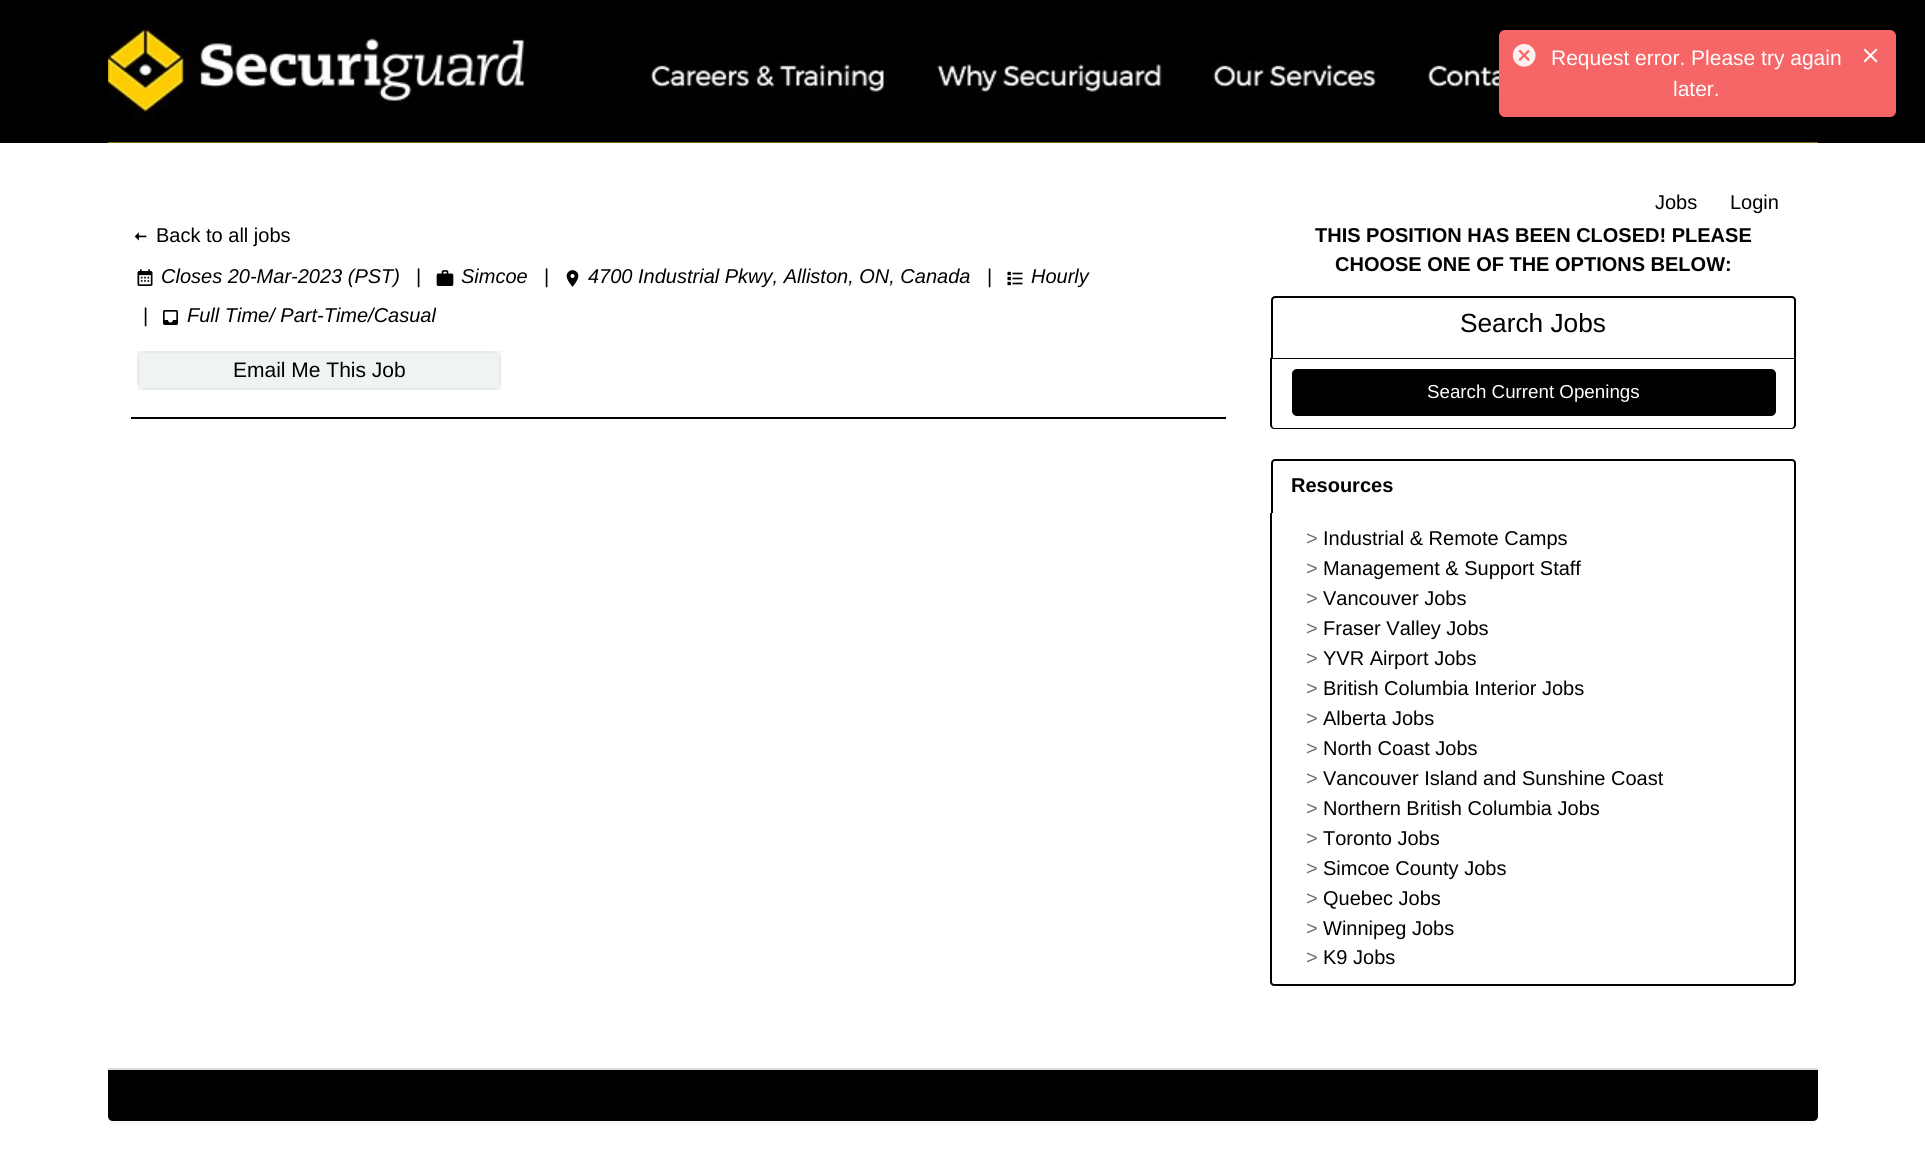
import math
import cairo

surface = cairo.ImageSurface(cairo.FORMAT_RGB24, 1925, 1176)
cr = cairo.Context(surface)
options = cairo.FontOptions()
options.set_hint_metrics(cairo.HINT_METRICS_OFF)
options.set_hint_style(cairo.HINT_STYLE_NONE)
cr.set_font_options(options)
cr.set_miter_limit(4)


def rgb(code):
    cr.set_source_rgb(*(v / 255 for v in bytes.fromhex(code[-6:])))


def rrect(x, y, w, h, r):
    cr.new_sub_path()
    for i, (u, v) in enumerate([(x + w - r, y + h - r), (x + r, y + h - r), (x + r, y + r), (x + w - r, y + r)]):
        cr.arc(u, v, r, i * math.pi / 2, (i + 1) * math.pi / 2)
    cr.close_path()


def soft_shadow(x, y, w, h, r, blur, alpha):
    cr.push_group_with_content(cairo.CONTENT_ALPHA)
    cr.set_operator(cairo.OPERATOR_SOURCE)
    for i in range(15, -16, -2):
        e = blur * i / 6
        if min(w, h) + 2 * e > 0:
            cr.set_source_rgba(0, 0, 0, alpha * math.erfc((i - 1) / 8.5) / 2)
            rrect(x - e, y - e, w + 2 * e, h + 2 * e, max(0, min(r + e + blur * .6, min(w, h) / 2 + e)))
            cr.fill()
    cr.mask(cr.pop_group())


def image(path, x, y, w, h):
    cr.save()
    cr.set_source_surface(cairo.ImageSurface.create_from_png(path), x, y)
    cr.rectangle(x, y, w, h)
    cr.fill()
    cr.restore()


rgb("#ffffff")
cr.paint()
rgb("#000000")
cr.rectangle(0, 0, 1925, 143)
cr.fill()
rgb("#ffcd00")
cr.rectangle(108, 142, 1710, 1)
cr.fill()
rgb("#000000")
soft_shadow(108, 144, 1710, 980, 6, 1, 0.05)
image("img/3.png", 108, 0, 1710, 143)
rgb("#f65555")
rrect(1499, 30, 397, 87, 6)
cr.fill()
image("img/1.png", 1512, 44, 24, 23)
cr.set_source_rgba(1, 1, 1, 0.1)
rrect(1499, 30, 397, 87, 6)
cr.fill()
image("img/2.png", 1863, 48, 15, 15)
rgb("#ffffff")
rrect(108, 143, 1710, 979, 6)
cr.fill()
image("img/4.png", 134, 232, 13, 9)
image("img/5.png", 137, 269, 16, 17)
image("img/6.png", 436, 270, 18, 16)
image("img/7.png", 566, 270, 13, 17)
image("img/8.png", 1007, 271, 16, 15)
image("img/9.png", 163, 310, 15, 15)
rgb("#f0f3f4")
rrect(137, 351, 364, 39, 8)
cr.fill()
cr.rectangle(138, 352, 362, 37)
cr.set_source_rgba(0, 0, 0, 0.04)
cr.stroke()
rgb("#000000")
cr.rectangle(131, 417, 1095, 2)
cr.fill()
cr.new_path()
cr.move_to(1275, 297)
cr.line_to(1792, 297)
cr.curve_to(1793.5, 297, 1795, 298.5, 1795, 300)
cr.line_to(1795, 359)
cr.line_to(1272, 359)
cr.line_to(1272, 300)
cr.curve_to(1272, 298.5, 1273.5, 297, 1275, 297)
cr.close_path()
cr.stroke()
rgb("#ffffff")
cr.new_path()
cr.move_to(1272, 359)
cr.line_to(1794, 359)
cr.line_to(1794, 426)
cr.curve_to(1794, 427, 1793, 428, 1792, 428)
cr.line_to(1274, 428)
cr.curve_to(1273, 428, 1272, 427, 1272, 426)
cr.close_path()
cr.fill()
rgb("#000000")
cr.set_fill_rule(cairo.FILL_RULE_EVEN_ODD)
cr.new_path()
cr.move_to(1270, 358)
cr.line_to(1796, 358)
cr.line_to(1796, 425)
cr.curve_to(1796, 427, 1794, 429, 1792, 429)
cr.line_to(1274, 429)
cr.curve_to(1272, 429, 1270, 427, 1270, 425)
cr.close_path()
cr.move_to(1272, 358)
cr.line_to(1794, 358)
cr.line_to(1794, 425)
cr.curve_to(1794, 426, 1793, 428, 1792, 428)
cr.line_to(1274, 428)
cr.curve_to(1273, 428, 1272, 426, 1272, 425)
cr.close_path()
cr.fill()
rrect(1292, 369, 484, 47, 5)
cr.fill()
cr.new_path()
cr.move_to(1275, 460)
cr.line_to(1792, 460)
cr.curve_to(1793.5, 460, 1795, 461.5, 1795, 463)
cr.line_to(1795, 514)
cr.line_to(1272, 514)
cr.line_to(1272, 463)
cr.curve_to(1272, 461.5, 1273.5, 460, 1275, 460)
cr.close_path()
cr.stroke()
rgb("#ffffff")
cr.new_path()
cr.move_to(1272, 513)
cr.line_to(1794, 513)
cr.line_to(1794, 982)
cr.curve_to(1794, 983, 1793, 984, 1792, 984)
cr.line_to(1274, 984)
cr.curve_to(1273, 984, 1272, 983, 1272, 982)
cr.close_path()
cr.fill()
rgb("#000000")
cr.new_path()
cr.move_to(1270, 513)
cr.line_to(1796, 513)
cr.line_to(1796, 982)
cr.curve_to(1796, 984, 1794, 986, 1792, 986)
cr.line_to(1274, 986)
cr.curve_to(1272, 986, 1270, 984, 1270, 982)
cr.close_path()
cr.move_to(1272, 513)
cr.line_to(1794, 513)
cr.line_to(1794, 982)
cr.curve_to(1794, 983, 1793, 984, 1792, 984)
cr.line_to(1274, 984)
cr.curve_to(1273, 984, 1272, 983, 1272, 982)
cr.close_path()
cr.fill()
cr.new_path()
cr.move_to(108, 1068)
cr.line_to(1818, 1068)
cr.line_to(1818, 1116)
cr.curve_to(1818, 1119, 1816, 1121, 1813, 1121)
cr.line_to(113, 1121)
cr.curve_to(110, 1121, 108, 1119, 108, 1116)
cr.close_path()
cr.fill()
rgb("#dddddd")
cr.rectangle(108, 1068, 1710, 2)
cr.fill()
cr.select_font_face("Liberation Sans")
cr.set_font_size(21)
rgb("#ffffff")
cr.move_to(1551, 65)
cr.show_text("Request error. Please try again")
cr.move_to(1673, 96)
cr.show_text("later.")
cr.set_font_size(20)
rgb("#000000")
for x, y, s in [
    (1655, 209, "Jobs"),
    (1730, 209, "Login"),
    (156, 242, "Back to all jobs"),
]:
    cr.move_to(x, y)
    cr.show_text(s)
cr.select_font_face("Liberation Sans", cairo.FONT_SLANT_ITALIC)
cr.move_to(161, 283)
cr.show_text("Closes 20-Mar-2023 (PST)")
cr.select_font_face("Liberation Sans")
cr.move_to(416, 283)
cr.show_text("|")
cr.select_font_face("Liberation Sans", cairo.FONT_SLANT_ITALIC)
cr.move_to(461, 283)
cr.show_text("Simcoe")
cr.select_font_face("Liberation Sans")
cr.move_to(544, 283)
cr.show_text("|")
cr.select_font_face("Liberation Sans", cairo.FONT_SLANT_ITALIC)
cr.move_to(588, 283)
cr.show_text("4700 Industrial Pkwy, Alliston, ON, Canada")
cr.select_font_face("Liberation Sans")
cr.move_to(987, 283)
cr.show_text("|")
cr.select_font_face("Liberation Sans", cairo.FONT_SLANT_ITALIC)
cr.move_to(1031, 283)
cr.show_text("Hourly")
cr.select_font_face("Liberation Sans")
cr.move_to(143, 322)
cr.show_text("|")
cr.select_font_face("Liberation Sans", cairo.FONT_SLANT_ITALIC)
cr.move_to(187, 322)
cr.show_text("Full Time/ Part-Time/Casual")
cr.select_font_face("Liberation Sans")
cr.set_font_size(21)
cr.move_to(233, 377)
cr.show_text("Email Me This Job")
cr.select_font_face("Liberation Sans", cairo.FONT_SLANT_NORMAL, cairo.FONT_WEIGHT_BOLD)
cr.set_font_size(20)
cr.move_to(1315, 242)
cr.show_text("THIS POSITION HAS BEEN CLOSED! PLEASE")
cr.move_to(1335, 271)
cr.show_text("CHOOSE ONE OF THE OPTIONS BELOW:")
cr.select_font_face("Liberation Sans")
cr.set_font_size(26.25)
cr.move_to(1460, 332)
cr.show_text("Search Jobs")
cr.set_font_size(18.75)
rgb("#ffffff")
cr.move_to(1427, 398)
cr.show_text("Search Current Openings")
cr.select_font_face("Liberation Sans", cairo.FONT_SLANT_NORMAL, cairo.FONT_WEIGHT_BOLD)
cr.set_font_size(20)
rgb("#000000")
cr.move_to(1291, 492)
cr.show_text("Resources")
cr.select_font_face("Liberation Sans")
rgb("#707070")
cr.move_to(1306, 545)
cr.show_text(">")
rgb("#000000")
cr.move_to(1323, 545)
cr.show_text("Industrial & Remote Camps")
rgb("#707070")
cr.move_to(1306, 575)
cr.show_text(">")
rgb("#000000")
cr.move_to(1323, 575)
cr.show_text("Management & Support Staff")
rgb("#707070")
cr.move_to(1306, 605)
cr.show_text(">")
rgb("#000000")
cr.move_to(1323, 605)
cr.show_text("Vancouver Jobs")
rgb("#707070")
cr.move_to(1306, 635)
cr.show_text(">")
rgb("#000000")
cr.move_to(1323, 635)
cr.show_text("Fraser Valley Jobs")
rgb("#707070")
cr.move_to(1306, 665)
cr.show_text(">")
rgb("#000000")
cr.move_to(1323, 665)
cr.show_text("YVR Airport Jobs")
rgb("#707070")
cr.move_to(1306, 695)
cr.show_text(">")
rgb("#000000")
cr.move_to(1323, 695)
cr.show_text("British Columbia Interior Jobs")
rgb("#707070")
cr.move_to(1306, 725)
cr.show_text(">")
rgb("#000000")
cr.move_to(1323, 725)
cr.show_text("Alberta Jobs")
rgb("#707070")
cr.move_to(1306, 755)
cr.show_text(">")
rgb("#000000")
cr.move_to(1323, 755)
cr.show_text("North Coast Jobs")
rgb("#707070")
cr.move_to(1306, 785)
cr.show_text(">")
rgb("#000000")
cr.move_to(1323, 785)
cr.show_text("Vancouver Island and Sunshine Coast")
rgb("#707070")
cr.move_to(1306, 815)
cr.show_text(">")
rgb("#000000")
cr.move_to(1323, 815)
cr.show_text("Northern British Columbia Jobs")
rgb("#707070")
cr.move_to(1306, 845)
cr.show_text(">")
rgb("#000000")
cr.move_to(1323, 845)
cr.show_text("Toronto Jobs")
rgb("#707070")
cr.move_to(1306, 875)
cr.show_text(">")
rgb("#000000")
cr.move_to(1323, 875)
cr.show_text("Simcoe County Jobs")
rgb("#707070")
cr.move_to(1306, 905)
cr.show_text(">")
rgb("#000000")
cr.move_to(1323, 905)
cr.show_text("Quebec Jobs")
rgb("#707070")
cr.move_to(1306, 935)
cr.show_text(">")
rgb("#000000")
cr.move_to(1323, 935)
cr.show_text("Winnipeg Jobs")
rgb("#707070")
cr.move_to(1306, 964)
cr.show_text(">")
rgb("#000000")
cr.move_to(1323, 964)
cr.show_text("K9 Jobs")
surface.write_to_png("page.png")
